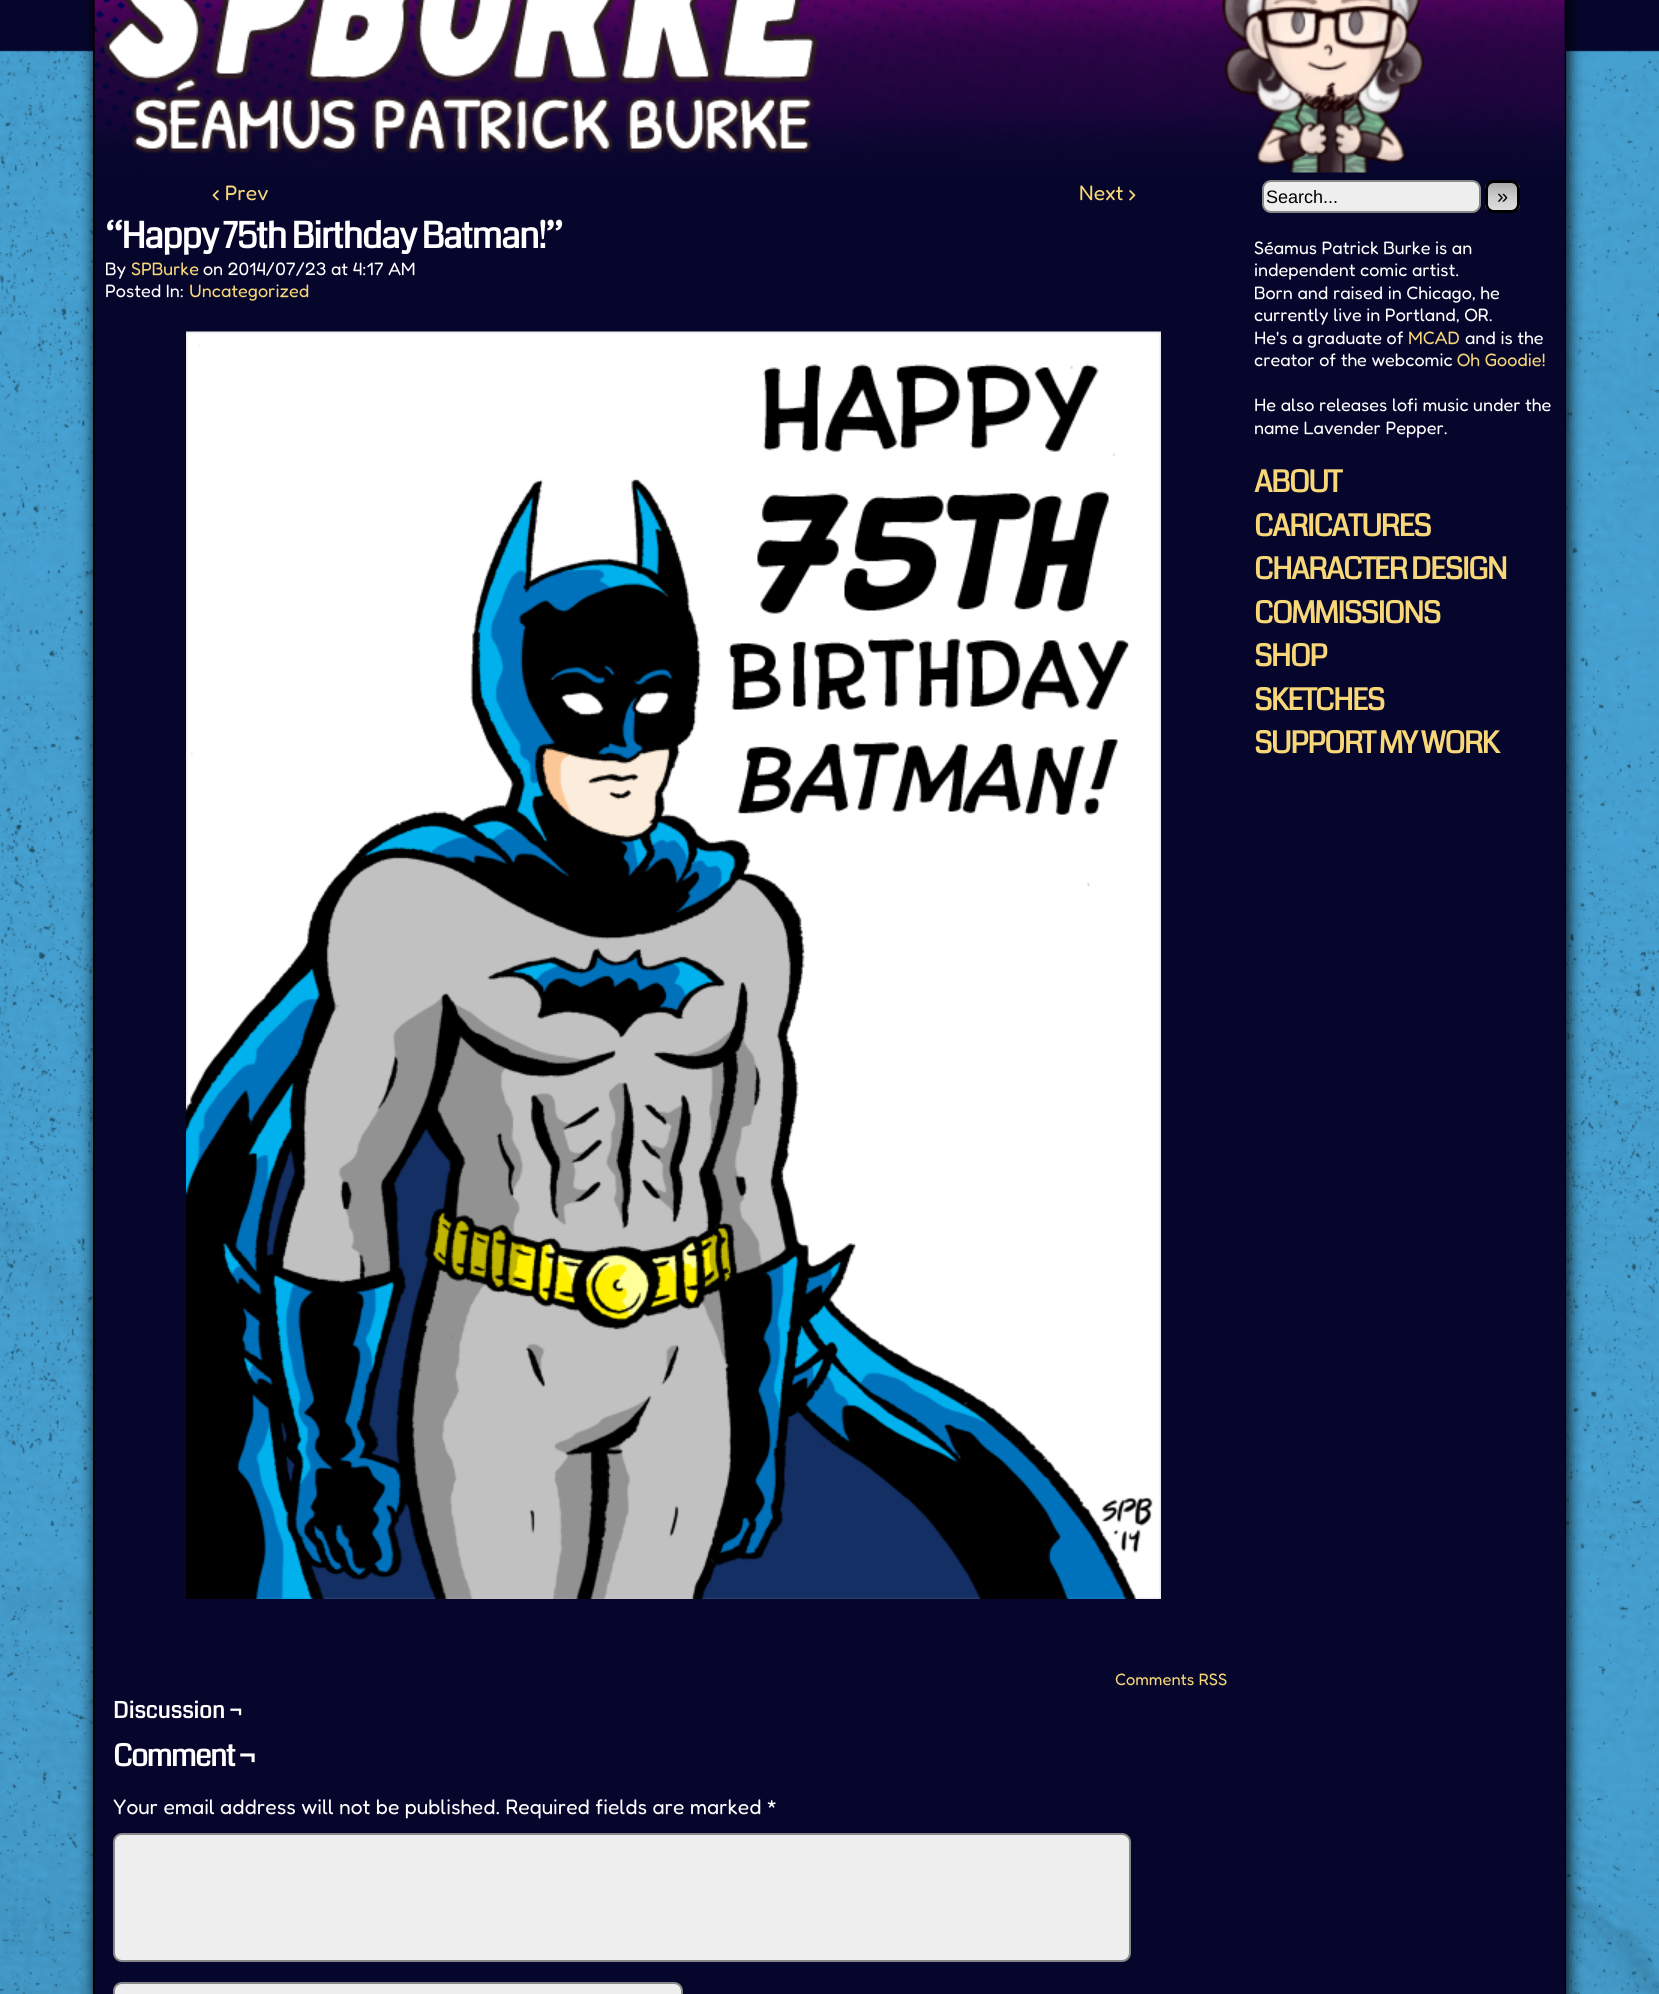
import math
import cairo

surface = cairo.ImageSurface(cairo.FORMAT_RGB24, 1659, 1994)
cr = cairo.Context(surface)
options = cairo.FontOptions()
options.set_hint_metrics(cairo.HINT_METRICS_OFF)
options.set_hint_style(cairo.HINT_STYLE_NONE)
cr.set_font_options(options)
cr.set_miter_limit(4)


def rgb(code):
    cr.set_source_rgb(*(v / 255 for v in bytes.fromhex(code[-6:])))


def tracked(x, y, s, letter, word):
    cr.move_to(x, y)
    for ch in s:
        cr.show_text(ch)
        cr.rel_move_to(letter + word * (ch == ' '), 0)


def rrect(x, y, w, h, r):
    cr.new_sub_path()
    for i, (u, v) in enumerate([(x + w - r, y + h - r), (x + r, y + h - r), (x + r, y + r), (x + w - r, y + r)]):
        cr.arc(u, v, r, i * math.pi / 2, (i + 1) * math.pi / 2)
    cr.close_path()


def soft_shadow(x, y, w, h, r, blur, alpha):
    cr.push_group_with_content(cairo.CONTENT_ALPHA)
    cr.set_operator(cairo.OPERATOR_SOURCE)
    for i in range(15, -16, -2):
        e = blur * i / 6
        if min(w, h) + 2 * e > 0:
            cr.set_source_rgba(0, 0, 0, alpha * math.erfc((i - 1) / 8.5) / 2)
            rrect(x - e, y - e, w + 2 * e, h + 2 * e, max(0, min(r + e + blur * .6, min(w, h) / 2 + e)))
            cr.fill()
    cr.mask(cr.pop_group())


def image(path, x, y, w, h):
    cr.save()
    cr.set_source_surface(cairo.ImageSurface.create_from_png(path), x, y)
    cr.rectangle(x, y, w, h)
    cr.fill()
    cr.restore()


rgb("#06062d")
cr.paint()
image("img/1.png", 0, 50, 1659, 1944)
rgb("#000000")
soft_shadow(95, -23, 1473, 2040, 0, 7.5, 1)
cr.rectangle(94, -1, 1471, 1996)
rgb("#000000")
cr.stroke()
rgb("#06062d")
cr.rectangle(95, 0, 1470, 1994)
cr.fill()
image("img/2.png", 94, 0, 1471, 173)
image("img/3.png", 186, 331, 975, 1268)
rgb("#eeeeee")
rrect(114, 1834, 1016, 127, 8)
cr.fill_preserve()
rgb("#888888")
cr.stroke()
rgb("#eeeeee")
rrect(114, 1983, 568, 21, 8)
cr.fill_preserve()
rgb("#888888")
cr.stroke()
rgb("#eeeeee")
rrect(1263, 181, 217, 31, 8)
cr.fill_preserve()
rgb("#888888")
cr.stroke()
cr.save()
rrect(1485, 180, 35, 33, 9)
cr.clip()
gradient = cairo.LinearGradient(1502, 183, 1502, 210)
gradient.add_color_stop_rgba(0, 0.667, 0.667, 0.667, 1)
gradient.add_color_stop_rgba(0.5, 0.8, 0.8, 0.8, 1)
gradient.add_color_stop_rgba(1, 0.867, 0.867, 0.867, 1)
cr.set_source(gradient)
cr.rectangle(1485, 183, 35, 27)
cr.fill()
cr.restore()
rrect(1486.5, 181.5, 32, 30, 7.5)
rgb("#000000")
cr.set_line_width(3)
cr.stroke()
cr.select_font_face("Fredoka Light")
cr.set_font_size(21)
rgb("#f7d778")
cr.move_to(212, 200)
cr.show_text("‹ Prev")
cr.move_to(1079, 200)
cr.show_text("Next ›")
cr.select_font_face("Coda", cairo.FONT_SLANT_NORMAL, cairo.FONT_WEIGHT_BOLD)
cr.set_font_size(36)
rgb("#ffffff")
tracked(105, 248, "“Happy 75th Birthday Batman!”", -1.5, 0)
cr.select_font_face("Fredoka Light")
cr.set_font_size(18)
cr.move_to(105, 275)
cr.show_text("By")
rgb("#f7d778")
cr.move_to(131, 275)
cr.show_text("SPBurke")
rgb("#ffffff")
cr.move_to(203, 275)
cr.show_text("on 2014/07/23 at 4:17 AM")
cr.move_to(105, 297)
cr.show_text("Posted In:")
rgb("#f7d778")
cr.move_to(189, 297)
cr.show_text("Uncategorized")
cr.set_font_size(16.5)
cr.move_to(1115, 1685)
cr.show_text("Comments RSS")
cr.select_font_face("Coda", cairo.FONT_SLANT_NORMAL, cairo.FONT_WEIGHT_BOLD)
cr.set_font_size(22.5)
rgb("#ffffff")
cr.move_to(113, 1718)
cr.show_text("Discussion ¬")
cr.set_font_size(30)
tracked(113, 1766, "Comment ¬", -1.5, 0)
cr.select_font_face("Fredoka Light")
cr.set_font_size(21)
cr.move_to(113, 1814)
cr.show_text("Your email address will not be published. Required fields are marked *")
cr.select_font_face("Liberation Sans")
cr.set_font_size(18)
rgb("#000000")
cr.move_to(1266, 203)
cr.show_text("Search...")
cr.set_font_size(20)
cr.move_to(1497, 203)
cr.show_text("»")
cr.select_font_face("Fredoka Light")
cr.set_font_size(18)
rgb("#ffffff")
for x, y, s in [
    (1254, 254, "Séamus Patrick Burke is an"),
    (1254, 276, "independent comic artist."),
    (1254, 299, "Born and raised in Chicago, he"),
    (1254, 321, "currently live in Portland, OR."),
    (1254, 344, "He's a graduate of"),
]:
    cr.move_to(x, y)
    cr.show_text(s)
rgb("#f7d778")
cr.move_to(1408, 344)
cr.show_text("MCAD")
rgb("#ffffff")
cr.move_to(1465, 344)
cr.show_text("and is the")
cr.move_to(1254, 366)
cr.show_text("creator of the webcomic")
rgb("#f7d778")
cr.move_to(1457, 366)
cr.show_text("Oh Goodie!")
rgb("#ffffff")
cr.move_to(1254, 411)
cr.show_text("He also releases lofi music under the")
cr.move_to(1254, 434)
cr.show_text("name Lavender Pepper.")
cr.select_font_face("Coda", cairo.FONT_SLANT_NORMAL, cairo.FONT_WEIGHT_BOLD)
cr.set_font_size(30)
rgb("#f7d778")
for x, y, s in [
    (1254, 492, "ABOUT"),
    (1254, 536, "CARICATURES"),
    (1254, 579, "CHARACTER DESIGN"),
    (1254, 623, "COMMISSIONS"),
    (1254, 666, "SHOP"),
    (1254, 710, "SKETCHES"),
    (1254, 753, "SUPPORT MY WORK"),
]:
    tracked(x, y, s, -1.5, 0)
surface.write_to_png("page.png")
